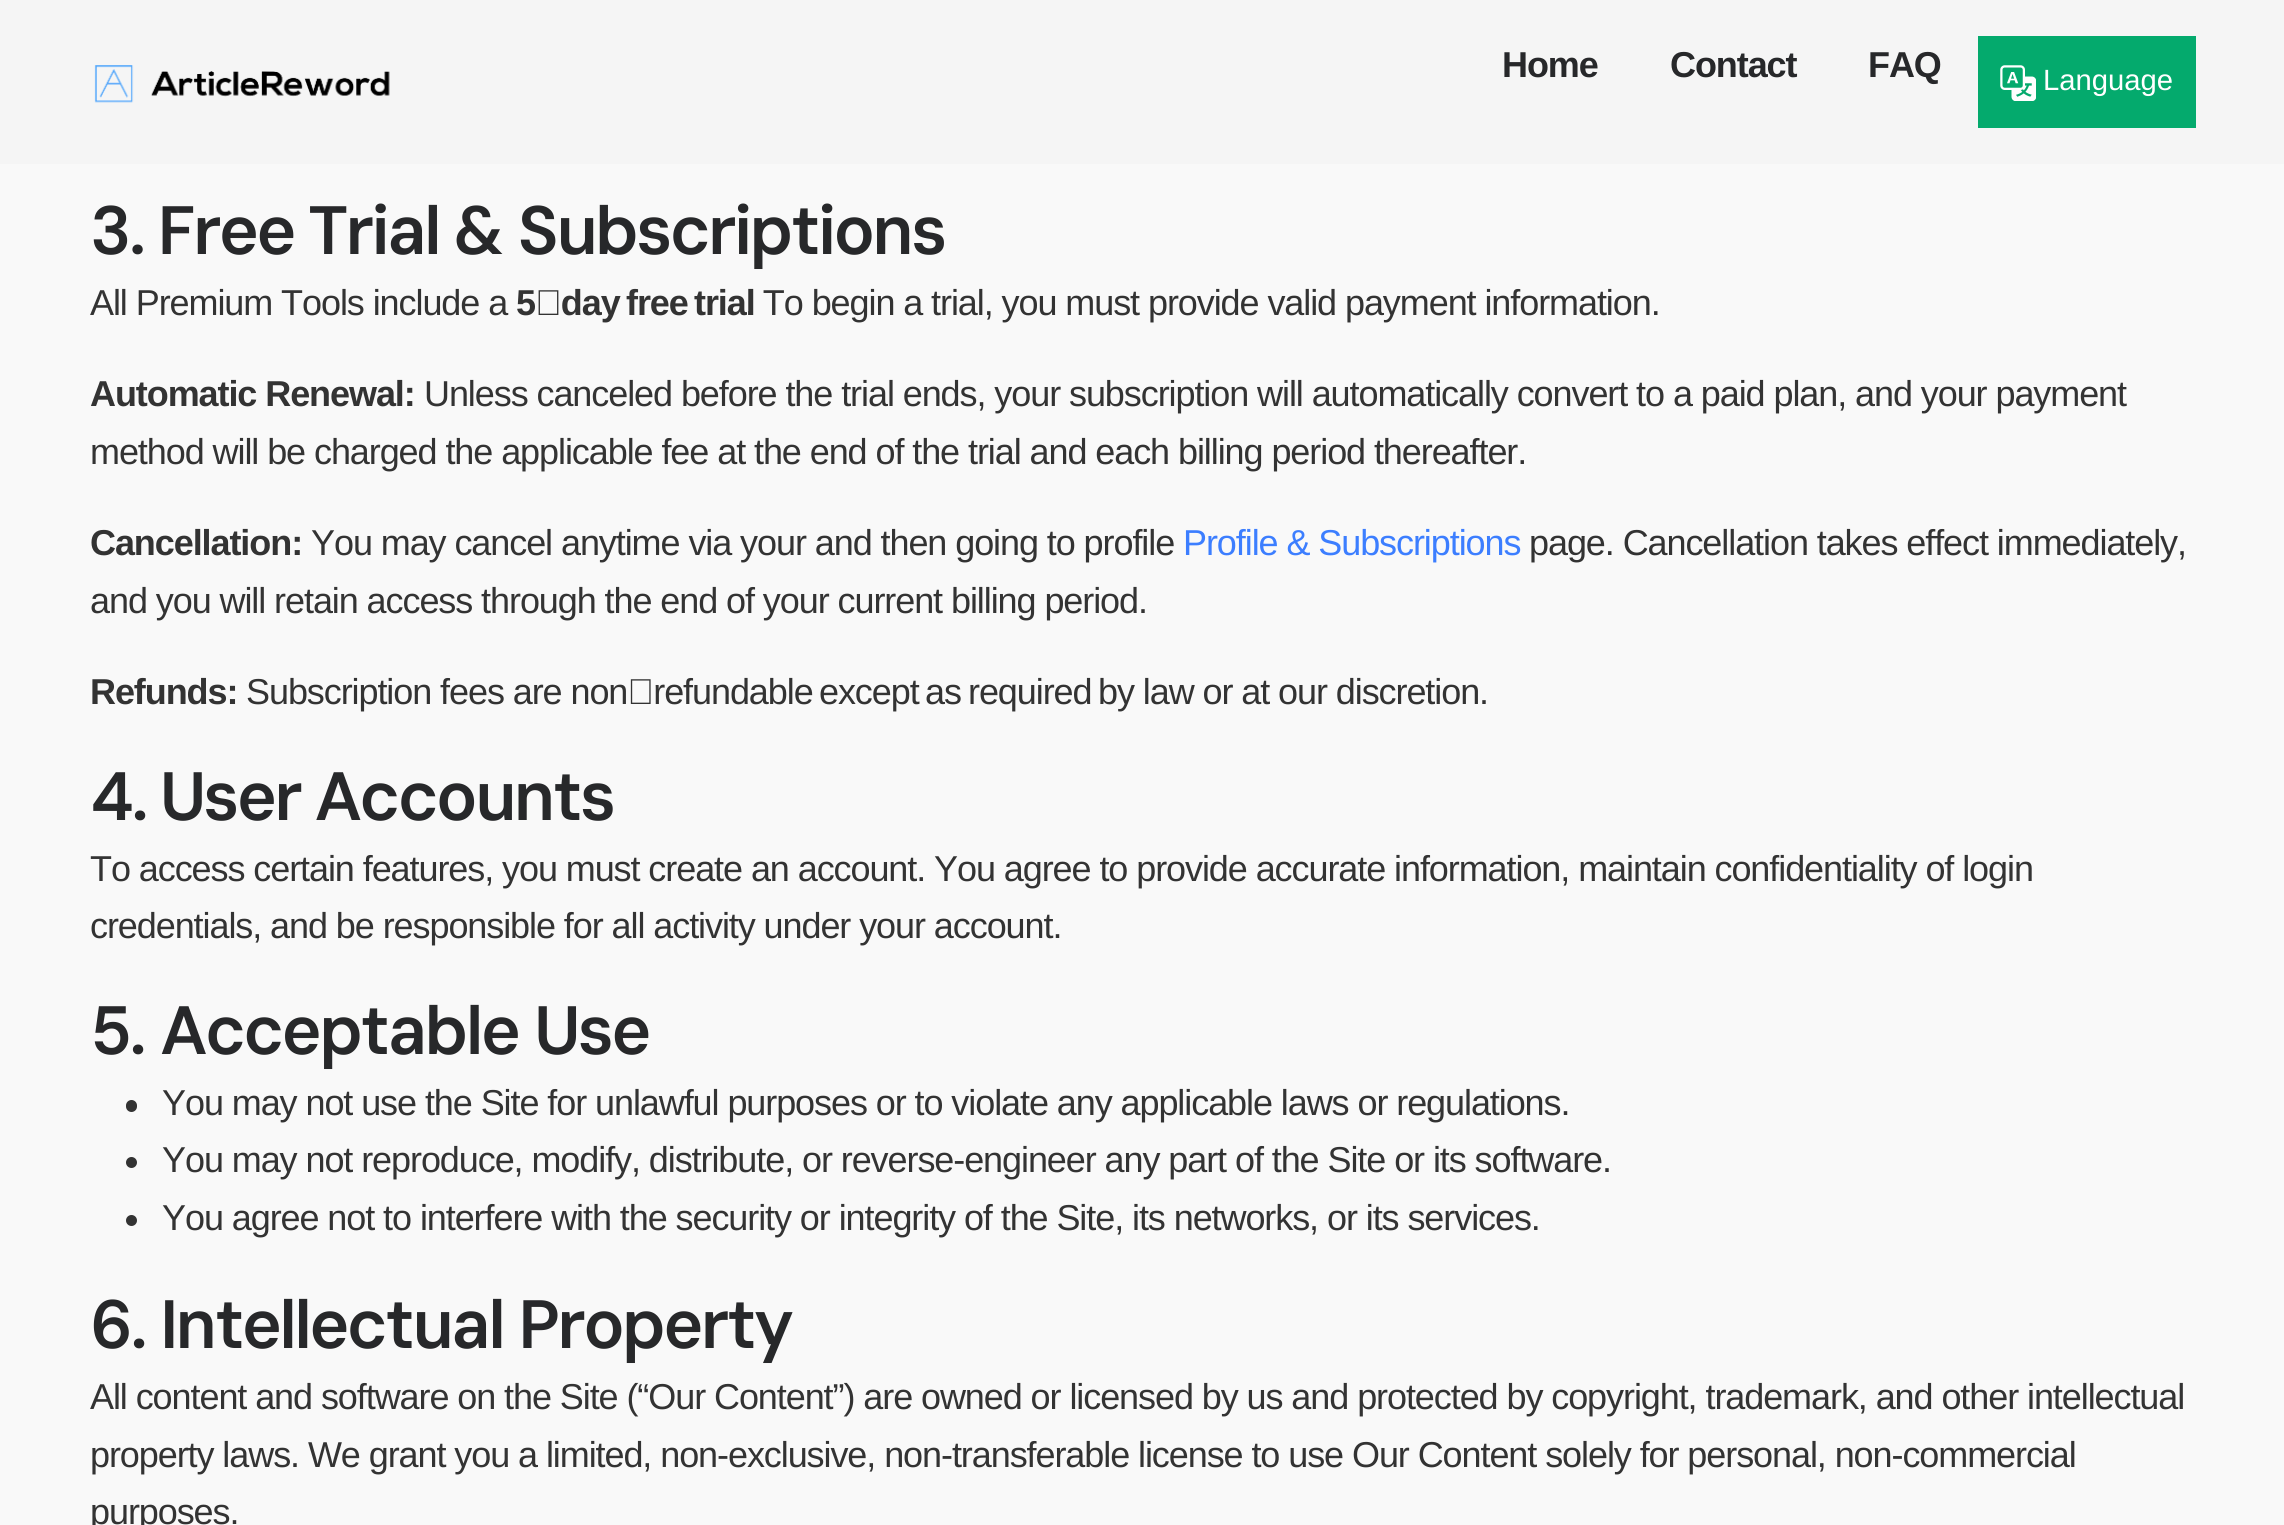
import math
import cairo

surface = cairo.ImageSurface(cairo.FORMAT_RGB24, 2284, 1525)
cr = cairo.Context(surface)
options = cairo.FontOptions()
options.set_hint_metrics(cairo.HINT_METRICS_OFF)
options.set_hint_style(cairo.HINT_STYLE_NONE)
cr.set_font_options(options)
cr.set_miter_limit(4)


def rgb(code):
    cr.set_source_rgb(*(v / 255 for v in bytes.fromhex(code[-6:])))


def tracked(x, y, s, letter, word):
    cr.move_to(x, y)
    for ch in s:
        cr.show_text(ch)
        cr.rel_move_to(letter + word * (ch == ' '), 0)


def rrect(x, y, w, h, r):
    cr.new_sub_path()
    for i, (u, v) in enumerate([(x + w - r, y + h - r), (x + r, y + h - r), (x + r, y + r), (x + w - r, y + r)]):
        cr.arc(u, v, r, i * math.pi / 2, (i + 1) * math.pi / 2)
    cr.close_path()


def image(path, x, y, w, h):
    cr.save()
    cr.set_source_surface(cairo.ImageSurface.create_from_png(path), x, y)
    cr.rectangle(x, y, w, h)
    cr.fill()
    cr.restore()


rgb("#f9f9f9")
cr.paint()
rgb("#f5f5f5")
cr.rectangle(0, 0, 2284, 164)
cr.fill()
image("img/1.png", 94, 65, 296, 38)
rgb("#04aa6d")
cr.rectangle(1978, 36, 218, 92)
cr.fill()
image("img/2.png", 2000, 65, 36, 36)
rgb("#333333")
rrect(126, 1100, 11, 12, 5.5)
cr.fill()
cr.arc(131.5, 1162.5, 5.5, 0, 2 * math.pi)
cr.fill()
cr.arc(131.5, 1220.5, 5.5, 0, 2 * math.pi)
cr.fill()
cr.select_font_face("Liberation Sans", cairo.FONT_SLANT_NORMAL, cairo.FONT_WEIGHT_BOLD)
cr.set_font_size(36)
rgb("#27282a")
for x, y, s in [
    (1502, 77, "Home"),
    (1670, 77, "Contact"),
    (1868, 77, "FAQ"),
]:
    tracked(x, y, s, -1.08, 0)
cr.select_font_face("Liberation Sans")
cr.set_font_size(29.25)
rgb("#ffffff")
cr.move_to(2043, 90)
cr.show_text("Language")
cr.select_font_face("DM Sans SemiBold")
cr.set_font_size(68.25)
rgb("#27282a")
tracked(90, 254, "3. Free Trial & Subscriptions", -2.75, 0)
cr.select_font_face("Liberation Sans")
cr.set_font_size(36)
rgb("#333333")
tracked(90, 315, "All Premium Tools include a", -1.08, 0)
cr.select_font_face("Liberation Sans", cairo.FONT_SLANT_NORMAL, cairo.FONT_WEIGHT_BOLD)
tracked(516, 315, "5‑day", -1.08, 0)
tracked(626, 315, "free", -1.08, 0)
tracked(694, 315, "trial", -1.08, 0)
cr.select_font_face("Liberation Sans")
tracked(745, 315, ". To begin a trial, you must provide valid payment information.", -1.08, 0)
cr.select_font_face("Liberation Sans", cairo.FONT_SLANT_NORMAL, cairo.FONT_WEIGHT_BOLD)
tracked(90, 406, "Automatic Renewal:", -1.08, 0)
cr.select_font_face("Liberation Sans")
tracked(424, 406, "Unless canceled before the trial ends, your subscription will automatically convert to a paid plan, and your payment", -1.08, 0)
tracked(90, 464, "method will be charged the applicable fee at the end of the trial and each billing period thereafter.", -1.08, 0)
cr.select_font_face("Liberation Sans", cairo.FONT_SLANT_NORMAL, cairo.FONT_WEIGHT_BOLD)
tracked(90, 555, "Cancellation:", -1.08, 0)
cr.select_font_face("Liberation Sans")
tracked(311, 555, "You may cancel anytime via your and then going to profile", -1.08, 0)
rgb("#3c7eff")
tracked(1183, 555, "Profile & Subscriptions", -1.08, 0)
rgb("#333333")
tracked(1529, 555, "page. Cancellation takes effect immediately,", -1.08, 0)
tracked(90, 613, "and you will retain access through the end of your current billing period.", -1.08, 0)
cr.select_font_face("Liberation Sans", cairo.FONT_SLANT_NORMAL, cairo.FONT_WEIGHT_BOLD)
tracked(90, 704, "Refunds:", -1.08, 0)
cr.select_font_face("Liberation Sans")
tracked(246, 704, "Subscription fees are non‑refundable", -1.08, 0)
tracked(819, 704, "except", -1.08, 0)
tracked(925, 704, "as", -1.08, 0)
tracked(968, 704, "required", -1.08, 0)
tracked(1098, 704, "by law or at our discretion.", -1.08, 0)
cr.select_font_face("DM Sans SemiBold")
cr.set_font_size(68.25)
rgb("#27282a")
tracked(90, 820, "4. User Accounts", -2.75, 0)
cr.select_font_face("Liberation Sans")
cr.set_font_size(36)
rgb("#333333")
tracked(90, 881, "To access certain features, you must create an account. You agree to provide accurate information, maintain confidentiality of login", -1.08, 0)
tracked(90, 938, "credentials, and be responsible for all activity under your account.", -1.08, 0)
cr.select_font_face("DM Sans SemiBold")
cr.set_font_size(68.25)
rgb("#27282a")
tracked(90, 1054, "5. Acceptable Use", -2.75, 2)
cr.select_font_face("Liberation Sans")
cr.set_font_size(36)
rgb("#333333")
for x, y, s in [
    (162, 1115, "You may not use the Site for unlawful purposes or to violate any applicable laws or regulations."),
    (162, 1172, "You may not reproduce, modify, distribute, or reverse-engineer any part of the Site or its software."),
    (162, 1230, "You agree not to interfere with the security or integrity of the Site, its networks, or its services."),
]:
    tracked(x, y, s, -1.08, 0)
cr.select_font_face("DM Sans SemiBold")
cr.set_font_size(68.25)
rgb("#27282a")
tracked(90, 1348, "6. Intellectual Property", -2.75, 1)
cr.select_font_face("Liberation Sans")
cr.set_font_size(36)
rgb("#333333")
for x, y, s in [
    (90, 1409, "All content and software on the Site (“Our Content”) are owned or licensed by us and protected by copyright, trademark, and other intellectual"),
    (90, 1467, "property laws. We grant you a limited, non-exclusive, non-transferable license to use Our Content solely for personal, non-commercial"),
    (90, 1524, "purposes."),
]:
    tracked(x, y, s, -1.08, 0)
surface.write_to_png("page.png")
